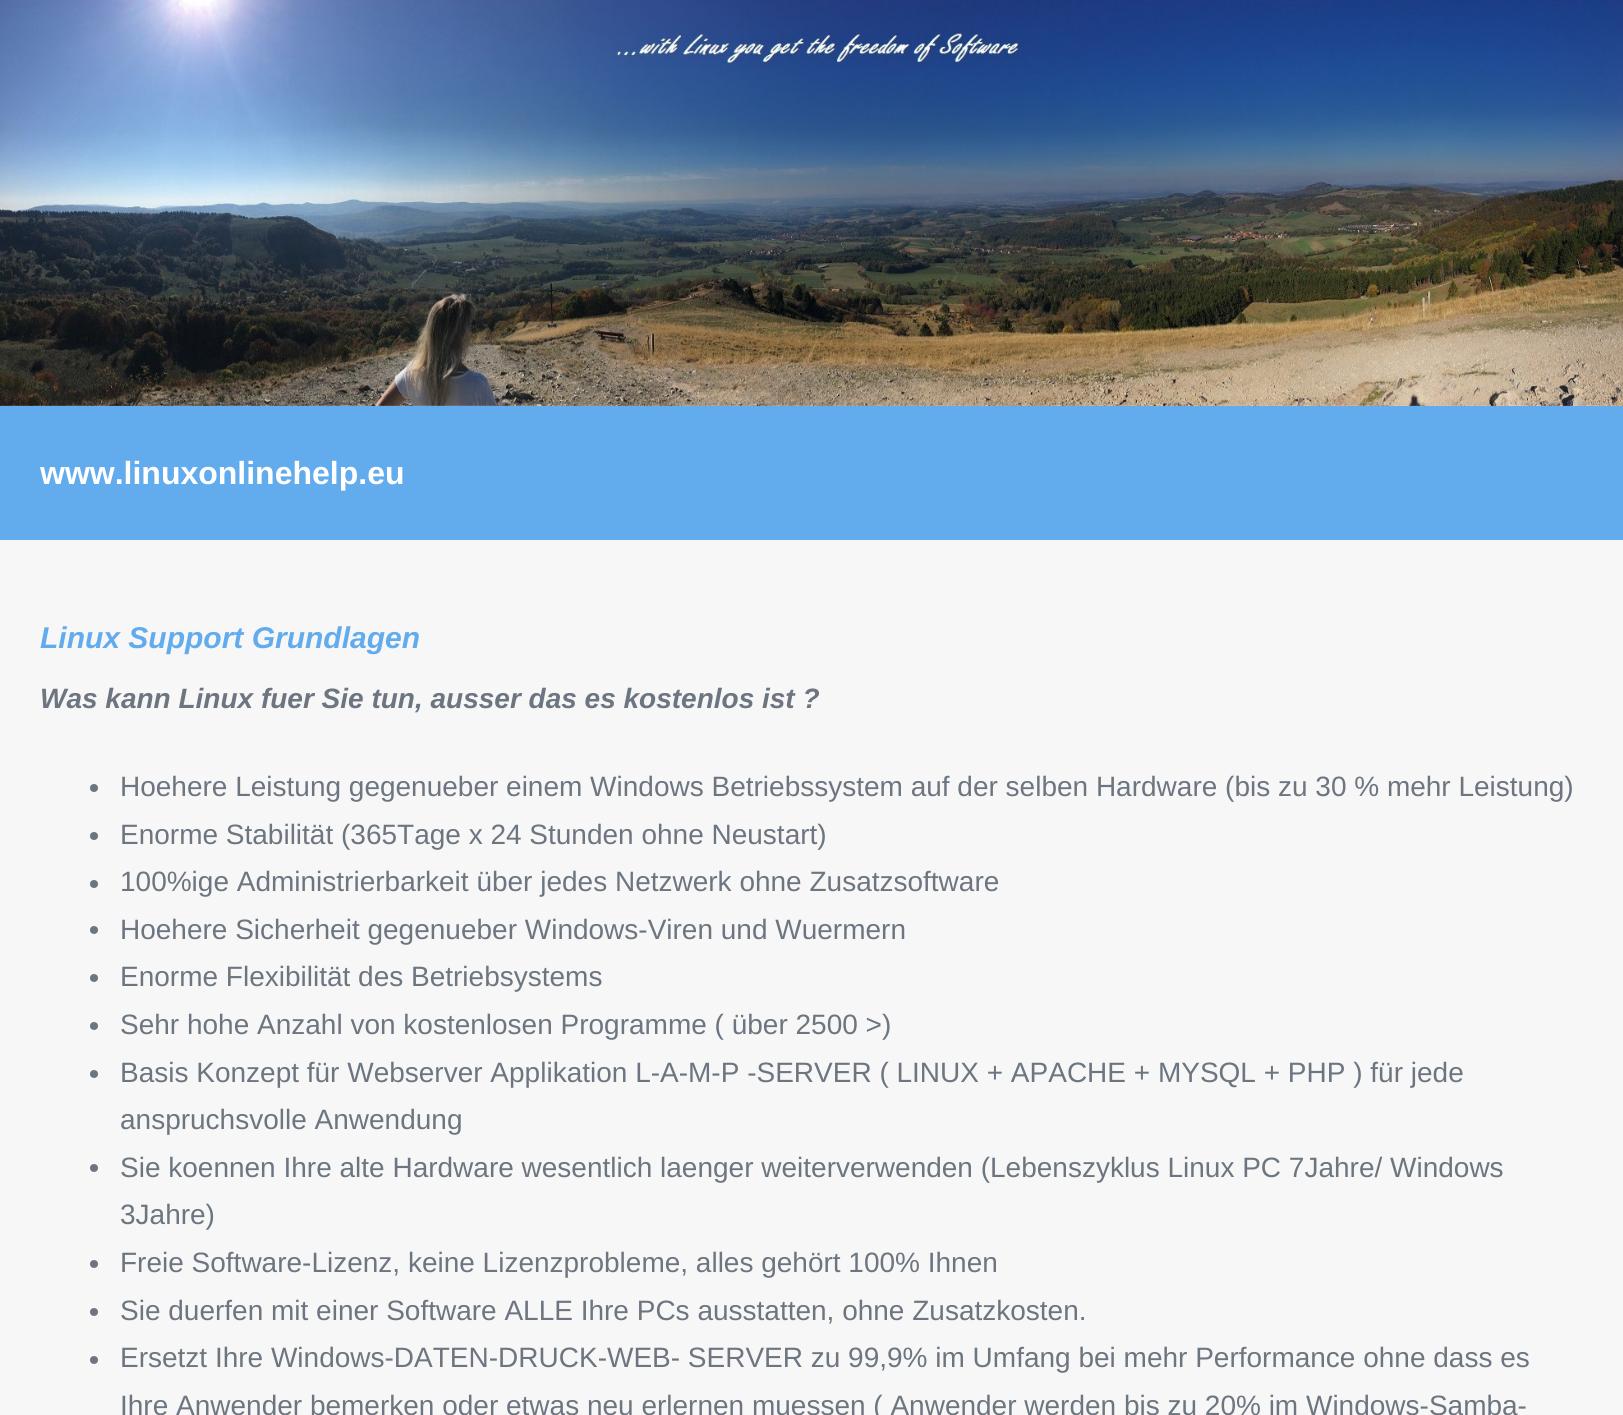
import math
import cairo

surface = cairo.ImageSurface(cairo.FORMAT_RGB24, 1623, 1415)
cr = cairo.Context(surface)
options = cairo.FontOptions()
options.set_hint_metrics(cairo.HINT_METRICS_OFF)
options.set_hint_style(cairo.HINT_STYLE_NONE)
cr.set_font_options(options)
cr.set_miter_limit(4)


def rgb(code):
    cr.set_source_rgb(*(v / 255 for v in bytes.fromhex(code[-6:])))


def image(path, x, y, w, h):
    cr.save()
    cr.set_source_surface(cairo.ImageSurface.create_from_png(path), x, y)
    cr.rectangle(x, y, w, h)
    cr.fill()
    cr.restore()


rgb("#ffffff")
cr.paint()
image("img/1.png", 0, 0, 1623, 406)
rgb("#f7f7f7")
cr.rectangle(0, 540, 1623, 875)
cr.fill()
rgb("#62aced")
cr.rectangle(0, 406, 1623, 134)
cr.fill()
rgb("#6d7680")
cr.arc(94, 788, 4, 0, 2 * math.pi)
cr.fill()
cr.arc(94, 836, 4, 0, 2 * math.pi)
cr.fill()
cr.arc(94, 884, 4, 0, 2 * math.pi)
cr.fill()
cr.arc(94, 930, 4, 0, 2 * math.pi)
cr.fill()
cr.arc(94, 978, 4, 0, 2 * math.pi)
cr.fill()
cr.arc(94, 1026, 4, 0, 2 * math.pi)
cr.fill()
cr.arc(94, 1074, 4, 0, 2 * math.pi)
cr.fill()
cr.arc(94, 1168, 4, 0, 2 * math.pi)
cr.fill()
cr.arc(94, 1264, 4, 0, 2 * math.pi)
cr.fill()
cr.arc(94, 1312, 4, 0, 2 * math.pi)
cr.fill()
cr.arc(94, 1360, 4, 0, 2 * math.pi)
cr.fill()
cr.select_font_face("Liberation Sans", cairo.FONT_SLANT_NORMAL, cairo.FONT_WEIGHT_BOLD)
cr.set_font_size(32)
rgb("#ffffff")
cr.move_to(40, 484)
cr.show_text("www.linuxonlinehelp.eu")
cr.select_font_face("Liberation Sans", cairo.FONT_SLANT_ITALIC, cairo.FONT_WEIGHT_BOLD)
cr.set_font_size(30)
rgb("#62aced")
cr.move_to(40, 648)
cr.show_text("Linux Support Grundlagen")
cr.set_font_size(28)
rgb("#6d7680")
cr.move_to(40, 708)
cr.show_text("Was kann Linux fuer Sie tun, ausser das es kostenlos ist ?")
cr.select_font_face("Liberation Sans")
for x, y, s in [
    (120, 796, "Hoehere Leistung gegenueber einem Windows Betriebssystem auf der selben Hardware (bis zu 30 % mehr Leistung)"),
    (120, 844, "Enorme Stabilität (365Tage x 24 Stunden ohne Neustart)"),
    (120, 891, "100%ige Administrierbarkeit über jedes Netzwerk ohne Zusatzsoftware"),
    (120, 939, "Hoehere Sicherheit gegenueber Windows-Viren und Wuermern"),
    (120, 986, "Enorme Flexibilität des Betriebsystems"),
    (120, 1034, "Sehr hohe Anzahl von kostenlosen Programme ( über 2500 >)"),
    (120, 1082, "Basis Konzept für Webserver Applikation L-A-M-P -SERVER ( LINUX + APACHE + MYSQL + PHP ) für jede"),
    (120, 1129, "anspruchsvolle Anwendung"),
    (120, 1177, "Sie koennen Ihre alte Hardware wesentlich laenger weiterverwenden (Lebenszyklus Linux PC 7Jahre/ Windows"),
    (120, 1224, "3Jahre)"),
    (120, 1272, "Freie Software-Lizenz, keine Lizenzprobleme, alles gehört 100% Ihnen"),
    (120, 1320, "Sie duerfen mit einer Software ALLE Ihre PCs ausstatten, ohne Zusatzkosten."),
    (120, 1367, "Ersetzt Ihre Windows-DATEN-DRUCK-WEB- SERVER zu 99,9% im Umfang bei mehr Performance ohne dass es"),
    (120, 1415, "Ihre Anwender bemerken oder etwas neu erlernen muessen ( Anwender werden bis zu 20% im Windows-Samba-"),
]:
    cr.move_to(x, y)
    cr.show_text(s)
surface.write_to_png("page.png")
